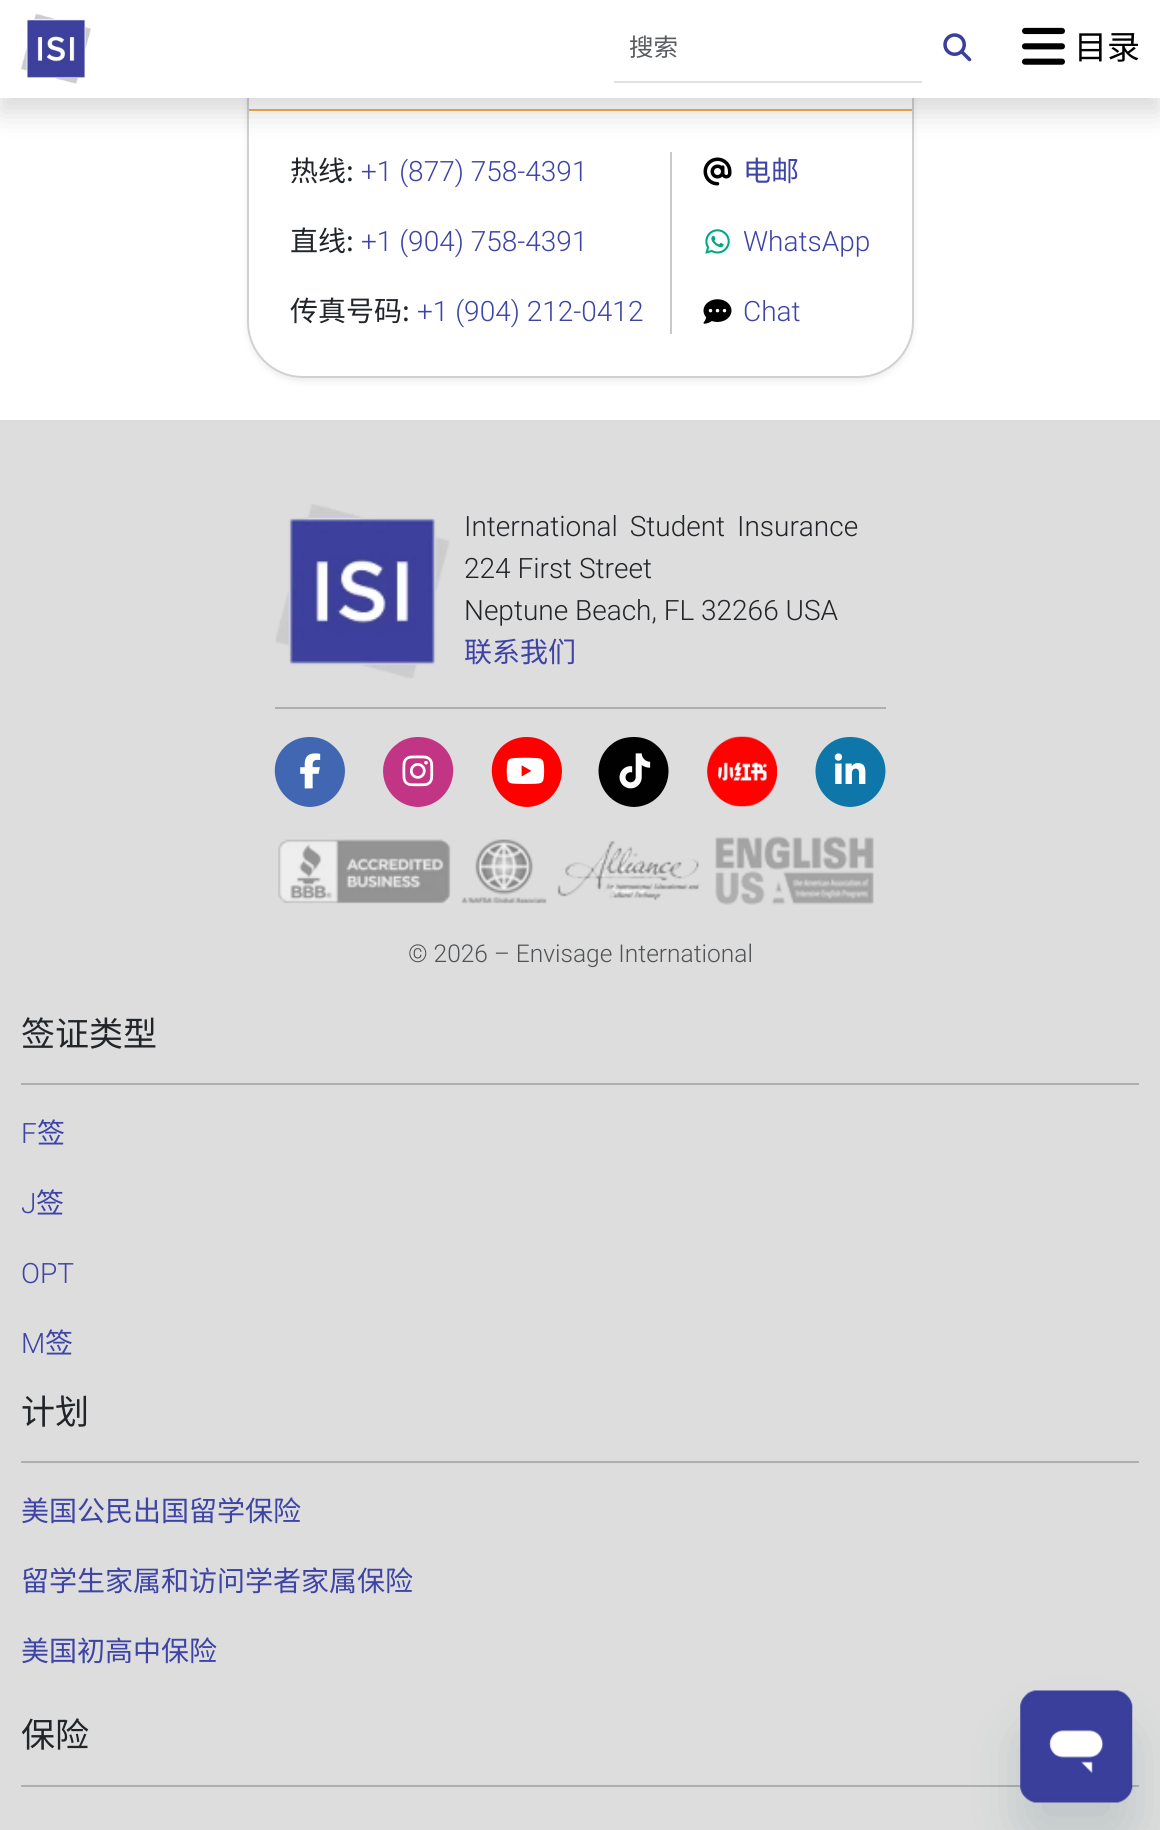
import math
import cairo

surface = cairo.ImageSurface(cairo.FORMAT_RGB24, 1160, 1830)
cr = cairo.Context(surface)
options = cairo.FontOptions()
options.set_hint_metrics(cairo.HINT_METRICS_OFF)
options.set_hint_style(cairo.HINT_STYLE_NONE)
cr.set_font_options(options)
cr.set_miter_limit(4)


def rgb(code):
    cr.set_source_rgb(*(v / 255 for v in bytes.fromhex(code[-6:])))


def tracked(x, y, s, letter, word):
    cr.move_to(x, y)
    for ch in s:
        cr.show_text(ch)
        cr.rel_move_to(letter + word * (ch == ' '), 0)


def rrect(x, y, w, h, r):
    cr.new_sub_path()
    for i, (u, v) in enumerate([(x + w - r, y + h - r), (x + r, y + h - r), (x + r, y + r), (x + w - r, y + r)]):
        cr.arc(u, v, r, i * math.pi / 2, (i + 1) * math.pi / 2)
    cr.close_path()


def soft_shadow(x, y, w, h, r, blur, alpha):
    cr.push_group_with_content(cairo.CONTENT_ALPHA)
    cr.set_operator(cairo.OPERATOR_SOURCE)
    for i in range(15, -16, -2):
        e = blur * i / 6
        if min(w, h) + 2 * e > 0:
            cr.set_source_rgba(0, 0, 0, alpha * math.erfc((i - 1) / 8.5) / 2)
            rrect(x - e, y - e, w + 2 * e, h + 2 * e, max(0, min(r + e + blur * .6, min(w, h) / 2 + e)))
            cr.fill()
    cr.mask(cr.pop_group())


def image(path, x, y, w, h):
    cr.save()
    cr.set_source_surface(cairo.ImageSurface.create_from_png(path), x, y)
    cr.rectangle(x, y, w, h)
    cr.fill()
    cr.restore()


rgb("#ffffff")
cr.paint()
gradient = cairo.RadialGradient(0, 0, 0, 0, 0, 1)
gradient.set_matrix(cairo.Matrix(1 / 820, 0, 0, 1 / 2962, -1 * 580 / 820, -1 * -1675 / 2962))
gradient.add_color_stop_rgba(0, 0.906, 0.906, 0.906, 1)
gradient.add_color_stop_rgba(0.7, 1, 1, 1, 1)
cr.set_source(gradient)
cr.rectangle(428, 98, 304, 84)
cr.fill()
rgb("#000000")
soft_shadow(247, 32, 667, 350, 56, 3.5, 0.07)
rgb("#ffffff")
rrect(247, 28, 667, 350, 56)
cr.fill()
rrect(248, 29, 665, 348, 55)
cr.set_source_rgba(0, 0, 0, 0.18)
cr.stroke()
rgb("#f0ad4e")
cr.rectangle(249, 109, 663, 2)
cr.fill()
rgb("#c8c9ca")
cr.rectangle(670, 152, 2, 182)
cr.fill()
rgb("#000000")
soft_shadow(0, 14, 1160, 98, 0, 14, 0.15)
rgb("#ffffff")
cr.rectangle(0, 0, 1160, 98)
cr.fill()
image("img/1.png", 21, 13, 70, 71)
rgb("#dee2e6")
cr.rectangle(614, 81, 308, 2)
cr.fill()
image("img/2.png", 943, 33, 29, 29)
image("img/3.png", 1022, 27, 43, 38)
image("img/4.png", 703, 157, 29, 29)
image("img/5.png", 705, 229, 25, 25)
image("img/6.png", 703, 299, 29, 25)
rgb("#dddddd")
cr.rectangle(0, 420, 1160, 1410)
cr.fill()
image("img/7.png", 275, 504, 175, 175)
rgb("#aeafb0")
cr.rectangle(275, 707, 611, 2)
cr.fill()
rgb("#4267b2")
cr.new_path()
cr.move_to(310, 807)
cr.curve_to(343, 806, 358, 764, 331, 744)
cr.curve_to(325, 739, 317, 737, 310, 737)
cr.curve_to(302, 737, 295, 739, 288, 744)
cr.curve_to(262, 764, 277, 806, 310, 807)
cr.close_path()
cr.fill()
image("img/8.png", 300, 753, 21, 36)
rgb("#c13584")
cr.new_path()
cr.move_to(418, 807)
cr.curve_to(451, 806, 466, 764, 440, 744)
cr.curve_to(433, 739, 426, 737, 418, 737)
cr.curve_to(411, 737, 403, 739, 397, 744)
cr.curve_to(370, 764, 385, 806, 418, 807)
cr.close_path()
cr.fill()
image("img/9.png", 402, 755, 32, 32)
rgb("#ff0000")
cr.new_path()
cr.move_to(527, 807)
cr.curve_to(560, 806, 575, 764, 548, 744)
cr.curve_to(542, 739, 534, 737, 527, 737)
cr.curve_to(519, 737, 512, 739, 505, 744)
cr.curve_to(479, 764, 494, 806, 527, 807)
cr.close_path()
cr.fill()
image("img/10.png", 506, 757, 39, 27)
rgb("#010101")
cr.new_path()
cr.move_to(634, 807)
cr.curve_to(667, 806, 681, 764, 655, 744)
cr.curve_to(649, 739, 641, 737, 634, 737)
cr.curve_to(626, 737, 618, 739, 612, 744)
cr.curve_to(586, 764, 600, 806, 634, 807)
cr.close_path()
cr.fill()
image("img/11.png", 619, 753, 32, 36)
image("img/12.png", 707, 736, 70, 71)
rgb("#0e76a8")
cr.new_path()
cr.move_to(850, 807)
cr.curve_to(884, 806, 898, 764, 872, 744)
cr.curve_to(866, 739, 858, 737, 850, 737)
cr.curve_to(843, 737, 835, 739, 829, 744)
cr.curve_to(803, 764, 817, 806, 850, 807)
cr.close_path()
cr.fill()
image("img/13.png", 834, 753, 32, 31)
image("img/14.png", 278, 836, 596, 69)
for x, y, w, h, color in [
    (21, 1083, 1118, 2, "#aeafb0"),
    (21, 1461, 1118, 2, "#aeafb0"),
    (21, 1785, 1118, 2, "#aeafb0"),
]:
    rgb(color)
    cr.rectangle(x, y, w, h)
    cr.fill()
rgb("#17494d")
soft_shadow(1020, 1726, 112, 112, 18, 26, 0.15)
image("img/15.png", 1020, 1690, 113, 113)
cr.select_font_face("Noto Sans CJK SC")
cr.set_font_size(24.5)
rgb("#595c5f")
cr.move_to(629, 56)
cr.show_text("搜索")
cr.set_font_size(33)
rgb("#000000")
cr.move_to(1074, 59)
cr.show_text("目录")
cr.set_font_size(28)
rgb("#212529")
cr.move_to(290, 181)
cr.show_text("热线:")
cr.select_font_face("Roboto Light")
rgb("#3e44a6")
cr.move_to(361, 181)
cr.show_text("+1 (877) 758-4391")
cr.select_font_face("Noto Sans CJK SC")
rgb("#212529")
cr.move_to(290, 251)
cr.show_text("直线:")
cr.select_font_face("Roboto Light")
rgb("#3e44a6")
cr.move_to(361, 251)
cr.show_text("+1 (904) 758-4391")
cr.select_font_face("Noto Sans CJK SC")
rgb("#212529")
cr.move_to(290, 321)
cr.show_text("传真号码:")
cr.select_font_face("Roboto Light")
rgb("#3e44a6")
cr.move_to(417, 321)
cr.show_text("+1 (904) 212-0412")
cr.select_font_face("Noto Sans CJK SC")
cr.move_to(743, 181)
cr.show_text("电邮")
cr.select_font_face("Roboto Light")
cr.move_to(743, 251)
cr.show_text("WhatsApp")
cr.move_to(743, 321)
cr.show_text("Chat")
rgb("#212529")
tracked(464, 536, "International Student Insurance", 0, 5)
cr.move_to(464, 578)
cr.show_text("224 First Street")
cr.move_to(464, 620)
cr.show_text("Neptune Beach, FL 32266 USA")
cr.select_font_face("Noto Sans CJK SC")
rgb("#3e44a6")
cr.move_to(464, 662)
cr.show_text("联系我们")
cr.select_font_face("Roboto Light")
cr.set_font_size(24.5)
rgb("#505356")
cr.move_to(408, 962)
cr.show_text("© 2026 – Envisage International")
cr.select_font_face("Noto Sans CJK SC")
cr.set_font_size(34)
rgb("#212529")
cr.move_to(21, 1046)
cr.show_text("签证类型")
cr.select_font_face("Roboto Light")
cr.set_font_size(28)
rgb("#3e44a6")
cr.move_to(21, 1143)
cr.show_text("F")
cr.select_font_face("Noto Sans CJK SC")
cr.move_to(37, 1143)
cr.show_text("签")
cr.select_font_face("Roboto Light")
cr.move_to(21, 1213)
cr.show_text("J")
cr.select_font_face("Noto Sans CJK SC")
cr.move_to(36, 1213)
cr.show_text("签")
cr.select_font_face("Roboto Light")
cr.move_to(21, 1283)
cr.show_text("OPT")
cr.move_to(21, 1353)
cr.show_text("M")
cr.select_font_face("Noto Sans CJK SC")
cr.move_to(45, 1353)
cr.show_text("签")
cr.set_font_size(34)
rgb("#212529")
cr.move_to(21, 1424)
cr.show_text("计划")
cr.set_font_size(28)
rgb("#3e44a6")
for x, y, s in [
    (21, 1521, "美国公民出国留学保险"),
    (21, 1591, "留学生家属和访问学者家属保险"),
    (21, 1661, "美国初高中保险"),
]:
    cr.move_to(x, y)
    cr.show_text(s)
cr.set_font_size(34)
rgb("#212529")
cr.move_to(21, 1747)
cr.show_text("保险")
surface.write_to_png("page.png")
